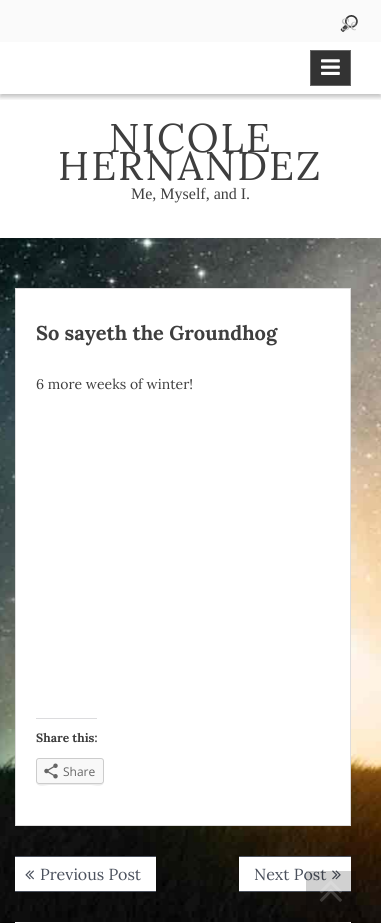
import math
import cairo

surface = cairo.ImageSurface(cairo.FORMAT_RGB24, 381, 923)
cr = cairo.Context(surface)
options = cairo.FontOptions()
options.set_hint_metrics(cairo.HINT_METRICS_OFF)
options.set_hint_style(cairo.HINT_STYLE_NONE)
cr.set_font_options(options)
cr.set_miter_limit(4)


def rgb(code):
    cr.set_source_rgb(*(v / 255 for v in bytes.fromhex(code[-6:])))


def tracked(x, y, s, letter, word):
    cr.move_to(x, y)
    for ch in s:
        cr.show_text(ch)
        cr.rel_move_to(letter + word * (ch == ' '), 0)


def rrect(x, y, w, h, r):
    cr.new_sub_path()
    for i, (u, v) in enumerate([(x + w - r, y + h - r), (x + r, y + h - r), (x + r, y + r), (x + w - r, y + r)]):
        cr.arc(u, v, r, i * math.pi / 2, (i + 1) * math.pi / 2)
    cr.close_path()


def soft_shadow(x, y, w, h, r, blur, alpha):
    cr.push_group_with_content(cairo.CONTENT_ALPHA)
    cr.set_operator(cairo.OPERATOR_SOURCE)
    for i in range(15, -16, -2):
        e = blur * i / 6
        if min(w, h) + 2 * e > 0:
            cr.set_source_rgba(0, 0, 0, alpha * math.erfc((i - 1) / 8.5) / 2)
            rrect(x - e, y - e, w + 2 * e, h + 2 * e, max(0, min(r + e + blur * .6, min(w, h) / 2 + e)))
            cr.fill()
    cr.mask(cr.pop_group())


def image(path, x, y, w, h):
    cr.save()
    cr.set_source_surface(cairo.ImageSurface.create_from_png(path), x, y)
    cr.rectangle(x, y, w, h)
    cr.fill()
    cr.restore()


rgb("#ffffff")
cr.paint()
image("img/1.png", 0, 238, 381, 685)
rgb("#fafafa")
cr.rectangle(0, 0, 381, 42)
cr.fill()
image("img/2.png", 340, 15, 18, 18)
cr.save()
cr.rectangle(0, 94, 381, 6)
cr.clip()
rgb("#000000")
soft_shadow(0, 45, 381, 52, 0, 2.5, 0.25)
cr.restore()
rgb("#333333")
cr.rectangle(310.5, 50.5, 40, 35)
cr.fill_preserve()
rgb("#666666")
cr.set_line_width(1)
cr.stroke()
image("img/3.png", 321, 59, 19, 16)
rgb("#ffffff")
cr.rectangle(15.5, 288.5, 335, 537)
cr.fill_preserve()
rgb("#dedddd")
cr.stroke()
rgb("#dcdcde")
cr.rectangle(36, 718, 61, 1)
cr.fill()
rgb("#ebebeb")
cr.new_path()
cr.move_to(36, 781)
cr.curve_to(36, 788, 45, 785, 49, 785)
cr.line_to(91, 785)
cr.curve_to(95, 785, 104, 788, 104, 781)
cr.curve_to(104, 783, 103, 784, 101, 784)
cr.line_to(39, 784)
cr.curve_to(37, 784, 36, 783, 36, 781)
cr.close_path()
cr.fill()
rgb("#f8f8f8")
rrect(36.5, 758.5, 67, 25, 2.5)
cr.fill_preserve()
rgb("#cccccc")
cr.stroke()
image("img/4.png", 44, 763, 14, 16)
for x, y, w, h, color in [
    (15, 857, 141, 34, "#ffffff"),
    (15, 856, 141, 1, "#4b515d"),
    (15, 891, 141, 1, "#4b515d"),
]:
    rgb(color)
    cr.rectangle(x, y, w, h)
    cr.fill()
image("img/5.png", 25, 870, 9, 10)
for x, y, w, h, color in [
    (239, 857, 112, 34, "#ffffff"),
    (239, 856, 112, 1, "#4b515d"),
    (239, 891, 112, 1, "#4b515d"),
]:
    rgb(color)
    cr.rectangle(x, y, w, h)
    cr.fill()
image("img/6.png", 332, 870, 9, 10)
rgb("#ffffff")
cr.rectangle(15, 922, 336, 1)
cr.fill()
cr.save()
cr.rectangle(341, 14, 15, 20)
cr.clip()
cr.select_font_face("Lora")
cr.set_font_size(16)
rgb("#c1c1c1")
cr.move_to(341, 30)
cr.show_text("Se")
cr.restore()
cr.select_font_face("Lora")
cr.set_font_size(40)
rgb("#3e3e3e")
tracked(109, 152, "NICOLE", 2, 0)
tracked(58, 180, "HERNANDEZ", 2, 0)
cr.select_font_face("Liberation Serif")
cr.set_font_size(16)
cr.move_to(131, 199)
cr.show_text("Me, Myself, and I.")
cr.select_font_face("Lora", cairo.FONT_SLANT_NORMAL, cairo.FONT_WEIGHT_BOLD)
cr.set_font_size(20)
cr.move_to(36, 340)
cr.show_text("So sayeth the Groundhog")
cr.select_font_face("Lora")
cr.set_font_size(14)
cr.move_to(36, 389)
cr.show_text("6 more weeks of winter!")
cr.select_font_face("Lora", cairo.FONT_SLANT_NORMAL, cairo.FONT_WEIGHT_BOLD)
cr.set_font_size(12)
cr.move_to(36, 742)
cr.show_text("Share this:")
cr.select_font_face("Open Sans")
rgb("#656565")
cr.move_to(63, 776)
cr.show_text("Share")
cr.select_font_face("Lora")
cr.set_font_size(16)
rgb("#4b515d")
cr.move_to(40, 880)
cr.show_text("Previous Post")
cr.move_to(254, 880)
cr.show_text("Next Post")
cr.set_source_rgba(0, 0, 0, 0.18)
cr.rectangle(306, 871, 50, 40)
cr.fill()
image("img/7.png", 319, 880, 23, 22)
surface.write_to_png("page.png")
